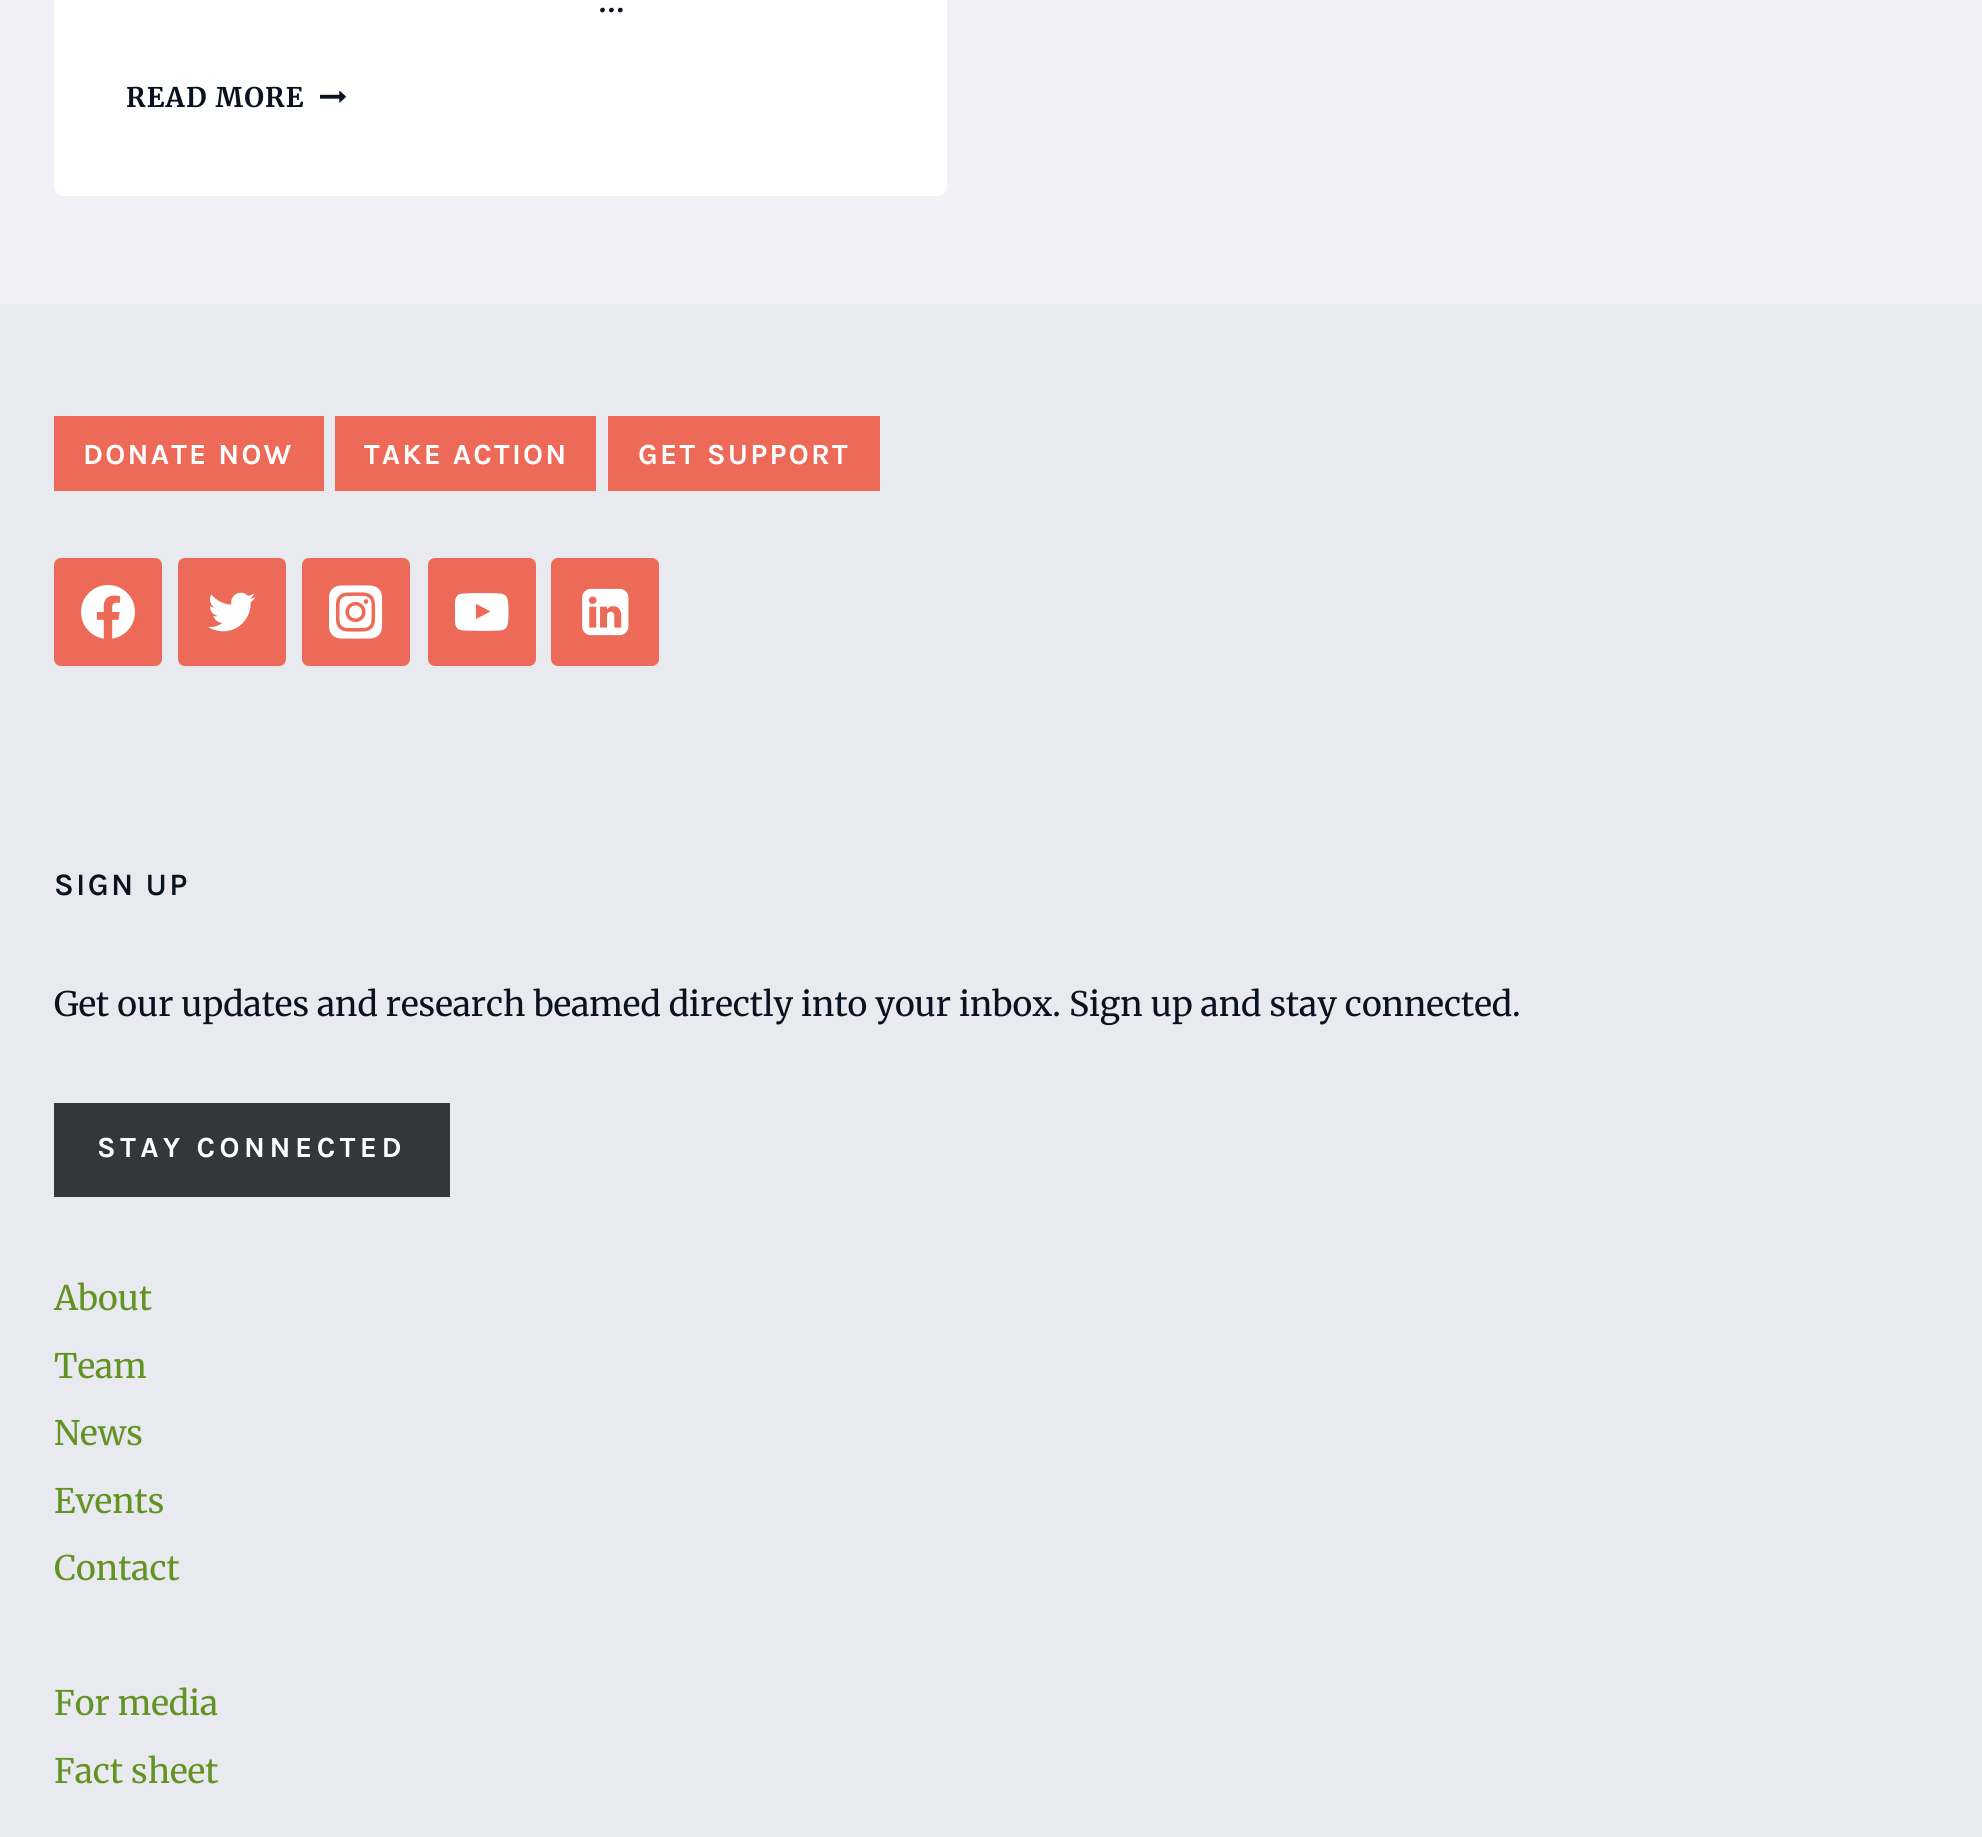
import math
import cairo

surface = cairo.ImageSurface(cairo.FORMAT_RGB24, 1982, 1837)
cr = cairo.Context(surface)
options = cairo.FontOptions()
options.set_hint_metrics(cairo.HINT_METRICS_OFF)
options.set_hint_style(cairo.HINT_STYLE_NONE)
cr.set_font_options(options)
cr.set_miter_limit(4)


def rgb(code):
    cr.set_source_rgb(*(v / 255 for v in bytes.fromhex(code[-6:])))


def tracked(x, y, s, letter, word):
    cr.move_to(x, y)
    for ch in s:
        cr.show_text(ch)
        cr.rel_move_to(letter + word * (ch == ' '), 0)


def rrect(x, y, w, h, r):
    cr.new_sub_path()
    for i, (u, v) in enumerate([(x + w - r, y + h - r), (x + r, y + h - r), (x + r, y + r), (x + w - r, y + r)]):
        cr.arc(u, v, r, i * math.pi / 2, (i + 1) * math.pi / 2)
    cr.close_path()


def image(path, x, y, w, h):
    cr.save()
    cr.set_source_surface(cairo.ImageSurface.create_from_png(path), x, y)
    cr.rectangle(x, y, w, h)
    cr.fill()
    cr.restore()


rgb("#f1f1f7")
cr.paint()
rgb("#ffffff")
rrect(54, -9, 893, 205, 9)
cr.fill()
image("img/1.png", 320, 91, 26, 12)
for x, y, w, h, color in [
    (0, 304, 1982, 1533, "#e9e9f0"),
    (54, 416, 270, 75, "#ec6a57"),
    (335, 416, 261, 75, "#ec6a57"),
    (608, 416, 272, 75, "#ec6a57"),
]:
    rgb(color)
    cr.rectangle(x, y, w, h)
    cr.fill()
rrect(54, 558, 108, 108, 7)
cr.fill()
image("img/2.png", 81, 585, 54, 54)
rrect(178, 558, 108, 108, 7)
cr.fill()
image("img/3.png", 208, 592, 48, 40)
rrect(302, 558, 108, 108, 7)
cr.fill()
image("img/4.png", 329, 585, 54, 54)
rrect(428, 558, 108, 108, 7)
cr.fill()
image("img/5.png", 455, 593, 54, 38)
rrect(551, 558, 108, 108, 7)
cr.fill()
image("img/6.png", 582, 588, 47, 48)
rgb("#32373c")
cr.rectangle(54, 1103, 396, 94)
cr.fill()
cr.select_font_face("Merriweather")
cr.set_font_size(33.75)
rgb("#091221")
cr.move_to(598, 12)
cr.show_text("…")
cr.select_font_face("Merriweather", cairo.FONT_SLANT_NORMAL, cairo.FONT_WEIGHT_BOLD)
cr.set_font_size(27)
tracked(126, 107, "READ MORE", 1.25, 0)
cr.select_font_face("Karla", cairo.FONT_SLANT_NORMAL, cairo.FONT_WEIGHT_BOLD)
cr.set_font_size(29.25)
rgb("#ffffff")
for x, y, s in [
    (83, 464, "DONATE NOW"),
    (364, 464, "TAKE ACTION"),
    (638, 464, "GET SUPPORT"),
]:
    tracked(x, y, s, 2.25, 0)
cr.select_font_face("Karla SemiBold")
cr.set_font_size(31.5)
rgb("#091221")
tracked(54, 895, "SIGN UP", 2.25, 0)
cr.select_font_face("Merriweather")
cr.set_font_size(33.75)
cr.move_to(54, 1016)
cr.show_text("Get our updates and research beamed directly into your inbox. Sign up and stay connected.")
cr.select_font_face("Karla", cairo.FONT_SLANT_NORMAL, cairo.FONT_WEIGHT_BOLD)
cr.set_font_size(29.25)
rgb("#ffffff")
tracked(97, 1157, "STAY CONNECTED", 4.5, 0)
cr.select_font_face("Merriweather")
cr.set_font_size(33.75)
rgb("#629323")
for x, y, s in [
    (54, 1310, "About"),
    (54, 1378, "Team"),
    (54, 1445, "News"),
    (54, 1513, "Events"),
    (54, 1580, "Contact"),
    (54, 1715, "For media"),
    (54, 1783, "Fact sheet"),
]:
    cr.move_to(x, y)
    cr.show_text(s)
surface.write_to_png("page.png")
